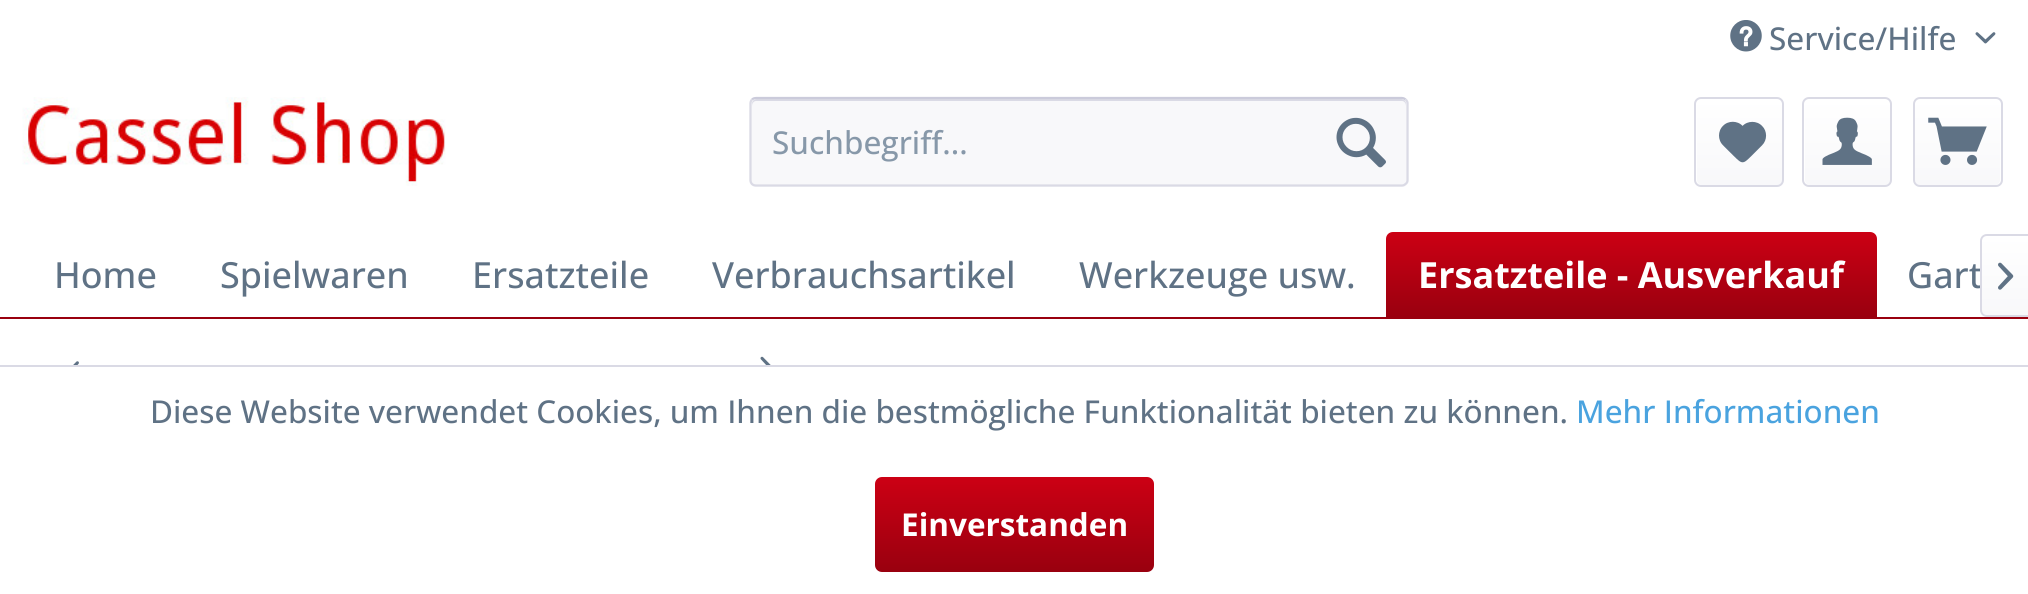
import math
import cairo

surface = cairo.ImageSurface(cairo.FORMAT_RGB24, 2028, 594)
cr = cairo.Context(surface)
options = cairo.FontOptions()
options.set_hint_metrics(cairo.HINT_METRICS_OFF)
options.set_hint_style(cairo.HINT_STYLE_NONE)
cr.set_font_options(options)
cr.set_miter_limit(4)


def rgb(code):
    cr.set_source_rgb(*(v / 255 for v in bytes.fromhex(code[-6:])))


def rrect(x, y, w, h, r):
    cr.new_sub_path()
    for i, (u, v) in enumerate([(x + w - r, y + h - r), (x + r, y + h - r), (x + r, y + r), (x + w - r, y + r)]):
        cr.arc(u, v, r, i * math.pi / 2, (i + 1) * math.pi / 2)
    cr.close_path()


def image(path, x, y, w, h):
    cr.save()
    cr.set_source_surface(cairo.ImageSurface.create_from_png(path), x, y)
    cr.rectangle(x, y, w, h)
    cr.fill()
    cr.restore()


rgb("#ffffff")
cr.paint()
image("img/1.png", 1730, 20, 32, 32)
image("img/2.png", 1975, 32, 21, 12)
image("img/3.png", 22, 97, 424, 89)
rgb("#f8f8fa")
rrect(749, 97, 660, 90, 7)
cr.fill()
rgb("#dadae5")
cr.new_path()
cr.move_to(756, 101)
cr.line_to(1402, 101)
cr.curve_to(1404, 101, 1406, 103, 1406, 106)
cr.line_to(1406, 104)
cr.curve_to(1406, 101, 1404, 99, 1401, 99)
cr.line_to(757, 99)
cr.curve_to(754, 99, 752, 101, 752, 104)
cr.line_to(752, 106)
cr.curve_to(752, 103, 754, 101, 756, 101)
cr.close_path()
cr.fill()
cr.new_path()
cr.move_to(752, 99.5)
cr.curve_to(753, 98.5, 754.5, 98, 756, 98)
cr.line_to(1402, 98)
cr.curve_to(1403, 98, 1404.5, 98.5, 1405.5, 99.5)
rgb("#cbcbdb")
cr.set_line_width(2.2)
cr.stroke()
cr.new_path()
cr.move_to(1405.5, 99.5)
cr.curve_to(1407, 100.5, 1407.5, 102, 1407.5, 103.5)
cr.line_to(1407.5, 180)
cr.curve_to(1407.5, 181.5, 1407, 183, 1405.5, 184)
cr.curve_to(1404.5, 185, 1403, 185.5, 1402, 185.5)
cr.line_to(756, 185.5)
cr.curve_to(754.5, 185.5, 753, 185, 752, 184)
cr.curve_to(751, 183, 750.5, 181.5, 750.5, 180)
cr.line_to(750.5, 103.5)
cr.curve_to(750.5, 102, 751, 100.5, 752, 99.5)
rgb("#dadae5")
cr.stroke()
image("img/4.png", 1336, 117, 50, 51)
gradient = cairo.LinearGradient(1739, 99, 1739, 185)
gradient.add_color_stop_rgba(0, 1, 1, 1, 1)
gradient.add_color_stop_rgba(1, 0.973, 0.973, 0.98, 1)
cr.set_source(gradient)
rrect(1697, 99, 85, 86, 5)
cr.fill()
rrect(1695, 98, 88, 88, 6)
rgb("#dadae5")
cr.set_line_width(2)
cr.stroke()
image("img/5.png", 1719, 121, 48, 42)
gradient = cairo.LinearGradient(1847, 99, 1847, 185)
gradient.add_color_stop_rgba(0, 1, 1, 1, 1)
gradient.add_color_stop_rgba(1, 0.973, 0.973, 0.98, 1)
cr.set_source(gradient)
rrect(1805, 99, 85, 86, 5)
cr.fill()
rrect(1803, 98, 88, 88, 6)
rgb("#dadae5")
cr.stroke()
image("img/6.png", 1822, 117, 50, 48)
gradient = cairo.LinearGradient(1958, 99, 1958, 185)
gradient.add_color_stop_rgba(0, 1, 1, 1, 1)
gradient.add_color_stop_rgba(1, 0.973, 0.973, 0.98, 1)
cr.set_source(gradient)
rrect(1915, 99, 85, 86, 5)
cr.fill()
rrect(1914, 98, 88, 88, 6)
rgb("#dadae5")
cr.stroke()
image("img/7.png", 1928, 117, 59, 48)
rgb("#99000f")
cr.rectangle(0, 317, 2028, 2)
cr.fill()
gradient = cairo.LinearGradient(1631, 232, 1631, 317)
gradient.add_color_stop_rgba(0, 0.8, 0, 0.078, 1)
gradient.add_color_stop_rgba(1, 0.6, 0, 0.059, 1)
cr.set_source(gradient)
cr.new_path()
cr.move_to(1393, 232)
cr.line_to(1870, 232)
cr.curve_to(1874, 232, 1877, 235, 1877, 239)
cr.line_to(1877, 317)
cr.line_to(1386, 317)
cr.line_to(1386, 239)
cr.curve_to(1386, 235, 1389, 232, 1393, 232)
cr.close_path()
cr.fill()
gradient = cairo.LinearGradient(2006, 236, 2006, 315)
gradient.add_color_stop_rgba(0, 1, 1, 1, 1)
gradient.add_color_stop_rgba(1, 0.973, 0.973, 0.98, 1)
cr.set_source(gradient)
cr.new_path()
cr.move_to(1987, 236)
cr.line_to(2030, 236)
cr.line_to(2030, 315)
cr.line_to(1987, 315)
cr.curve_to(1984, 315, 1982, 313, 1982, 310)
cr.line_to(1982, 241)
cr.curve_to(1982, 238, 1984, 236, 1987, 236)
cr.close_path()
cr.fill()
image("img/9.png", 73, 361, 6, 4)
image("img/10.png", 760, 356, 11, 9)
rgb("#dadae5")
cr.rectangle(0, 365, 2028, 2)
cr.fill()
gradient = cairo.LinearGradient(1015, 477, 1015, 572)
gradient.add_color_stop_rgba(0, 0.8, 0, 0.078, 1)
gradient.add_color_stop_rgba(1, 0.6, 0, 0.059, 1)
cr.set_source(gradient)
rrect(875, 477, 279, 95, 7)
cr.fill()
cr.select_font_face("Open Sans Medium")
cr.set_font_size(31.5)
rgb("#5f7285")
cr.move_to(1769, 50)
cr.show_text("Service/Hilfe")
rgb("#8798a9")
cr.move_to(772, 154)
cr.show_text("Suchbegriff...")
cr.set_font_size(36)
rgb("#5f7285")
for x, y, s in [
    (54, 288, "Home"),
    (220, 288, "Spielwaren"),
    (472, 288, "Ersatzteile"),
    (712, 288, "Verbrauchsartikel"),
    (1079, 288, "Werkzeuge usw."),
]:
    cr.move_to(x, y)
    cr.show_text(s)
cr.select_font_face("Open Sans", cairo.FONT_SLANT_NORMAL, cairo.FONT_WEIGHT_BOLD)
rgb("#ffffff")
cr.move_to(1418, 288)
cr.show_text("Ersatzteile - Ausverkauf")
cr.select_font_face("Open Sans Medium")
rgb("#5f7285")
cr.move_to(1907, 288)
cr.show_text("Gart")
rgb("#dadae5")
cr.set_fill_rule(cairo.FILL_RULE_EVEN_ODD)
cr.new_path()
cr.move_to(1987, 234)
cr.line_to(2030, 234)
cr.line_to(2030, 317)
cr.line_to(1987, 317)
cr.curve_to(1983, 317, 1980, 314, 1980, 310)
cr.line_to(1980, 241)
cr.curve_to(1980, 237, 1983, 234, 1987, 234)
cr.close_path()
cr.move_to(1987, 236)
cr.line_to(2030, 236)
cr.line_to(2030, 315)
cr.line_to(1987, 315)
cr.curve_to(1984, 315, 1982, 313, 1982, 310)
cr.line_to(1982, 241)
cr.curve_to(1982, 238, 1984, 236, 1987, 236)
cr.close_path()
cr.fill()
image("img/8.png", 1998, 262, 16, 28)
cr.set_font_size(31.5)
rgb("#5f7285")
cr.move_to(150, 423)
cr.show_text("Diese Website verwendet Cookies, um Ihnen die bestmögliche Funktionalität bieten zu können.")
rgb("#4aa3df")
cr.move_to(1576, 423)
cr.show_text("Mehr Informationen")
cr.select_font_face("Open Sans", cairo.FONT_SLANT_NORMAL, cairo.FONT_WEIGHT_BOLD)
rgb("#ffffff")
cr.move_to(901, 536)
cr.show_text("Einverstanden")
surface.write_to_png("page.png")
